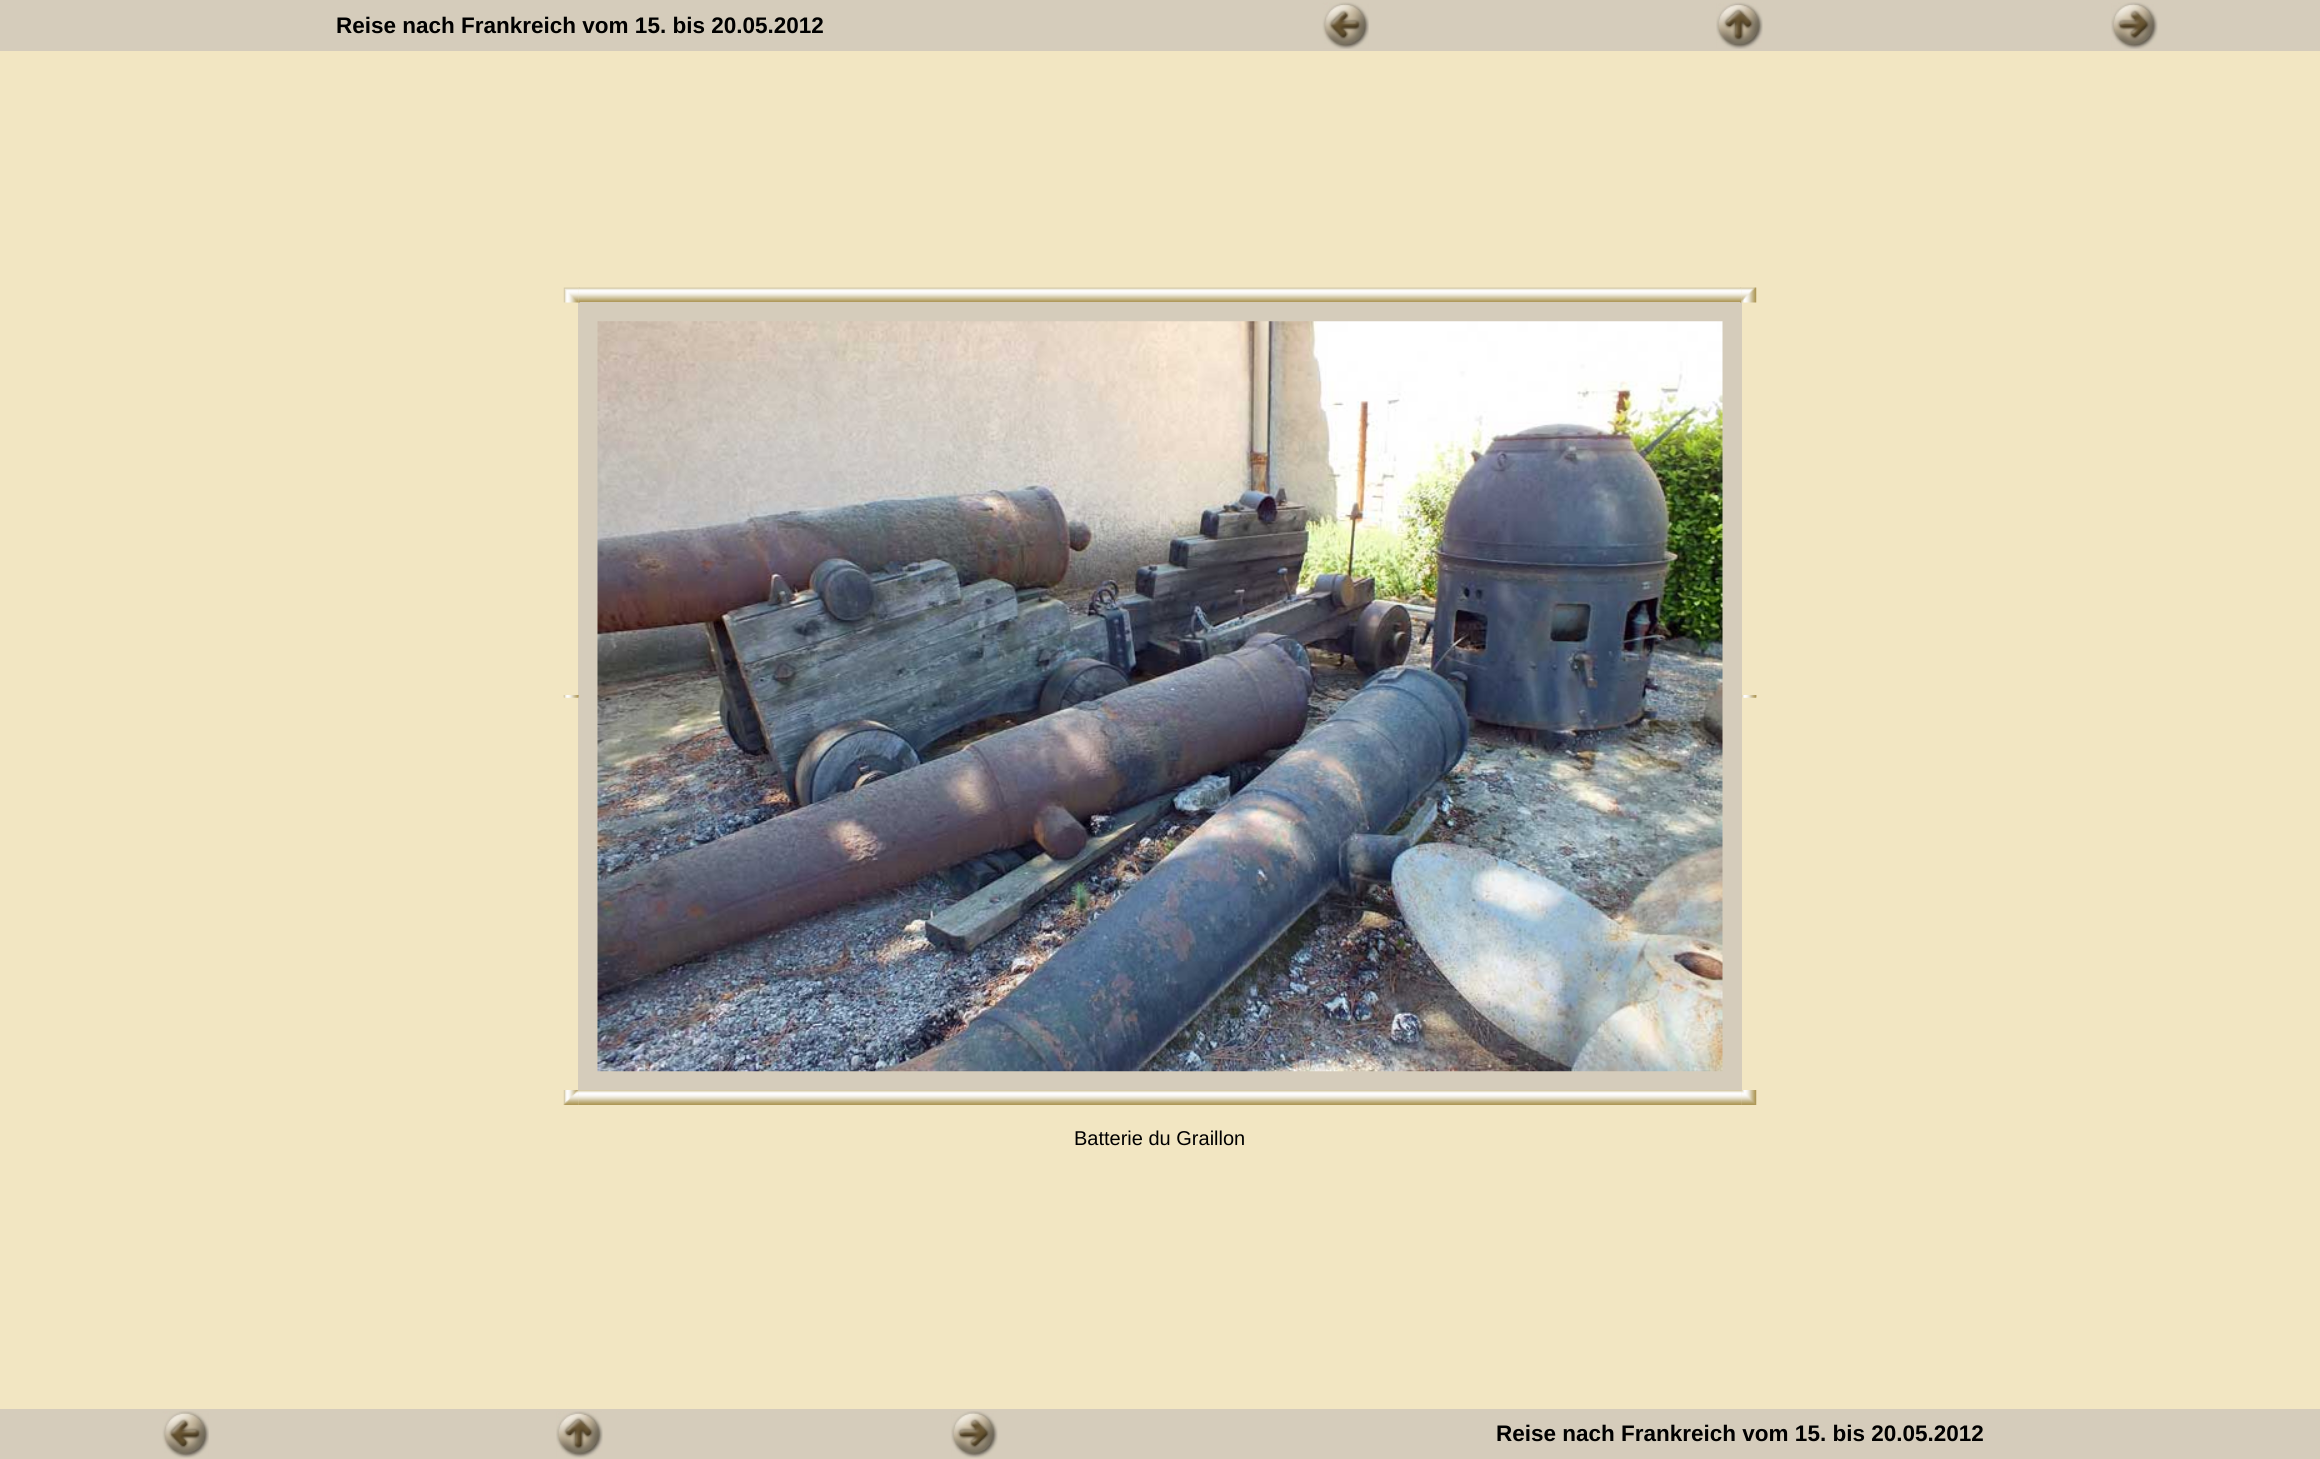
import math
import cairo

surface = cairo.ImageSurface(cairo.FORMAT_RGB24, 2320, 1459)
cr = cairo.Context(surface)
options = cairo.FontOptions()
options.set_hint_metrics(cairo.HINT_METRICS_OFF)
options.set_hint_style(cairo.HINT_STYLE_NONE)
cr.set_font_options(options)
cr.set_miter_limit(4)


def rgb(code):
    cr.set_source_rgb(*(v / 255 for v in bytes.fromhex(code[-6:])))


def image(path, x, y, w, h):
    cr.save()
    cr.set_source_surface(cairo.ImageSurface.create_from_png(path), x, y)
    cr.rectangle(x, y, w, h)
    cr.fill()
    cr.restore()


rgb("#f2e6c2")
cr.paint()
rgb("#d5ccbb")
cr.rectangle(0, 0, 2320, 51)
cr.fill()
image("img/1.png", 1322, 2, 47, 47)
image("img/2.png", 1716, 2, 47, 47)
image("img/3.png", 2111, 2, 47, 47)
image("img/5.png", 578, 287, 1164, 15)
cr.rectangle(578, 302, 1164, 788)
cr.fill()
image("img/6.png", 578, 287, 2, 16)
image("img/4.png", 563, 287, 16, 16)
image("img/7.png", 1740, 287, 2, 16)
image("img/8.png", 1741, 287, 16, 16)
image("img/9.png", 563, 695, 15, 3)
image("img/10.png", 563, 695, 16, 2)
image("img/11.png", 563, 696, 16, 2)
image("img/12.png", 597, 321, 1126, 751)
image("img/13.png", 1741, 695, 16, 3)
image("img/14.png", 1756, 695, 1, 2)
image("img/15.png", 1743, 696, 14, 2)
image("img/17.png", 578, 1090, 1164, 15)
image("img/18.png", 578, 1090, 1, 15)
image("img/16.png", 563, 1090, 16, 15)
image("img/18.png", 1741, 1090, 1, 15)
image("img/19.png", 1741, 1090, 16, 15)
cr.rectangle(0, 1409, 2320, 50)
cr.fill()
image("img/20.png", 162, 1411, 47, 47)
image("img/21.png", 556, 1411, 47, 47)
image("img/22.png", 951, 1411, 47, 47)
cr.select_font_face("Liberation Sans", cairo.FONT_SLANT_NORMAL, cairo.FONT_WEIGHT_BOLD)
cr.set_font_size(22.5)
rgb("#000000")
cr.move_to(336, 33)
cr.show_text("Reise nach Frankreich vom 15. bis 20.05.2012")
cr.select_font_face("Liberation Sans")
cr.set_font_size(20)
cr.move_to(1074, 1145)
cr.show_text("Batterie du Graillon")
cr.select_font_face("Liberation Sans", cairo.FONT_SLANT_NORMAL, cairo.FONT_WEIGHT_BOLD)
cr.set_font_size(22.5)
cr.move_to(1496, 1441)
cr.show_text("Reise nach Frankreich vom 15. bis 20.05.2012")
surface.write_to_png("page.png")
